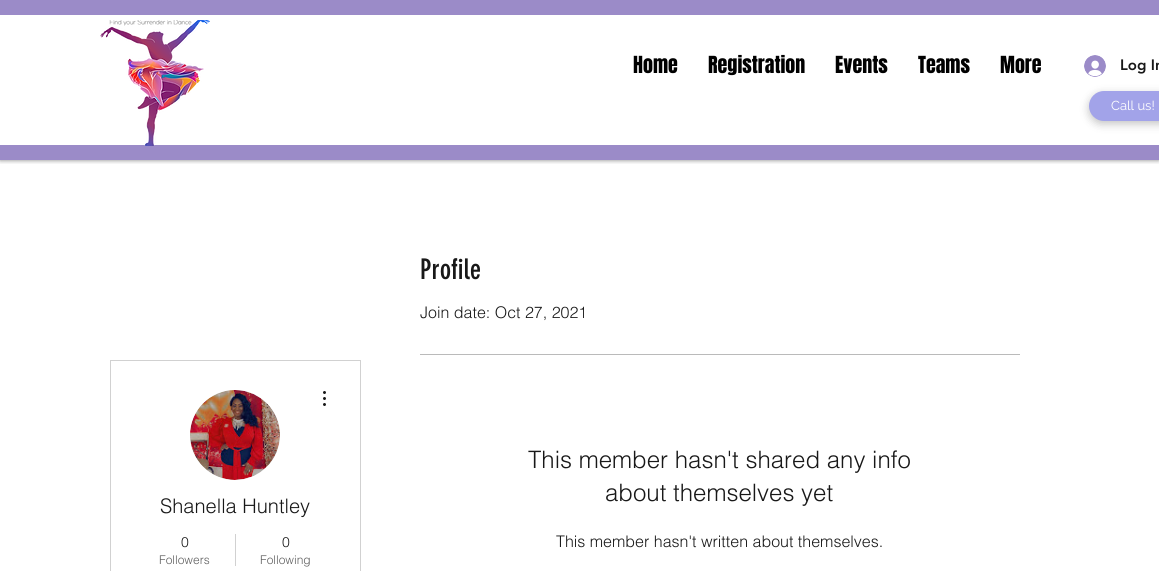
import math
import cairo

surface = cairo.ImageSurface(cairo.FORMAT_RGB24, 1159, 571)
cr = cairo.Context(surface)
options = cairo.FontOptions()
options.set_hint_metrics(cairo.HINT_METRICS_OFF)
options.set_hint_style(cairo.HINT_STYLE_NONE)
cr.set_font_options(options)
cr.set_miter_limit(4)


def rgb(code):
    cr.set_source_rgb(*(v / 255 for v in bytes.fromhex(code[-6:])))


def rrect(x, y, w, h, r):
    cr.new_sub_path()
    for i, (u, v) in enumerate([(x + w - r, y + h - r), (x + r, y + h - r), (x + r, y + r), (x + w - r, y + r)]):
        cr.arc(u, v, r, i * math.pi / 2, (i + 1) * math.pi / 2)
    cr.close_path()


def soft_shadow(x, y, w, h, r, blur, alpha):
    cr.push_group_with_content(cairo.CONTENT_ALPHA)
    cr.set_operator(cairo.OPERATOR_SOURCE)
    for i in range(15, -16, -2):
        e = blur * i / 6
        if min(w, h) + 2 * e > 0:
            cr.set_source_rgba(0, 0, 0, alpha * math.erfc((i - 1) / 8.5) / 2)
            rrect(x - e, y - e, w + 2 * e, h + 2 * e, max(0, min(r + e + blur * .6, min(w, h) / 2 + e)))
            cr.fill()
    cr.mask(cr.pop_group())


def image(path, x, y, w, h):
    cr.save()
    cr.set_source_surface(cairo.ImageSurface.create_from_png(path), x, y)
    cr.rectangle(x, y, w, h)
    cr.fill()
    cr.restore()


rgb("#ffffff")
cr.paint()
cr.save()
cr.rectangle(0, 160, 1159, 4)
cr.clip()
rgb("#000000")
soft_shadow(0, 0, 1159, 160, 0, 2.5, 0.5)
cr.restore()
rgb("#9b8bc8")
cr.rectangle(0, 0, 1159, 15)
cr.fill()
cr.rectangle(0, 145, 1159, 15)
cr.fill()
image("img/1.png", 100, 20, 110, 126)
image("img/2.png", 1084, 55, 22, 22)
rgb("#000000")
soft_shadow(1089, 94, 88, 30, 15, 4.5, 0.23)
rgb("#a2a3e9")
rrect(1089, 91, 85, 30, 15)
cr.fill()
cr.rectangle(110.5, 360.5, 250, 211)
rgb("#d1d1d1")
cr.set_line_width(1)
cr.stroke()
rgb("#d8d8d8")
cr.arc(235, 435, 45, 0, 2 * math.pi)
cr.fill()
image("img/3.png", 190, 390, 90, 90)
image("img/4.png", 323, 391, 3, 15)
rgb("#d1d1d1")
cr.rectangle(235, 534, 1, 32)
cr.fill()
rgb("#bababa")
cr.rectangle(420, 354, 600, 1)
cr.fill()
cr.select_font_face("Anton")
cr.set_font_size(20)
rgb("#000000")
for x, y, s in [
    (633, 73, "Home"),
    (708, 73, "Registration"),
    (835, 73, "Events"),
    (918, 73, "Teams"),
    (1000, 73, "More"),
]:
    cr.move_to(x, y)
    cr.show_text(s)
cr.select_font_face("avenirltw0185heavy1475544 Black")
cr.set_font_size(15)
rgb("#181818")
cr.move_to(1120, 70)
cr.show_text("Log In")
cr.select_font_face("Raleway")
cr.set_font_size(13)
rgb("#ffffff")
cr.move_to(1111, 110)
cr.show_text("Call us!")
cr.select_font_face("helvetica Light")
cr.set_font_size(20)
rgb("#181818")
cr.move_to(160, 513)
cr.show_text("Shanella Huntley")
cr.set_font_size(14)
cr.move_to(181, 547)
cr.show_text("0")
cr.set_font_size(12)
rgb("#5d5d5d")
cr.move_to(159, 564)
cr.show_text("Followers")
cr.set_font_size(14)
rgb("#181818")
cr.move_to(282, 547)
cr.show_text("0")
cr.set_font_size(12)
rgb("#5d5d5d")
cr.move_to(260, 564)
cr.show_text("Following")
cr.select_font_face("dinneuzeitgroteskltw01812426")
cr.set_font_size(28)
rgb("#181818")
cr.move_to(420, 279)
cr.show_text("Profile")
cr.select_font_face("helvetica Light")
cr.set_font_size(16)
cr.move_to(420, 318)
cr.show_text("Join date: Oct 27, 2021")
cr.set_font_size(24)
cr.move_to(528, 468)
cr.show_text("This member hasn't shared any info")
cr.move_to(605, 501)
cr.show_text("about themselves yet")
cr.set_font_size(16)
cr.move_to(556, 547)
cr.show_text("This member hasn't written about themselves.")
surface.write_to_png("page.png")
